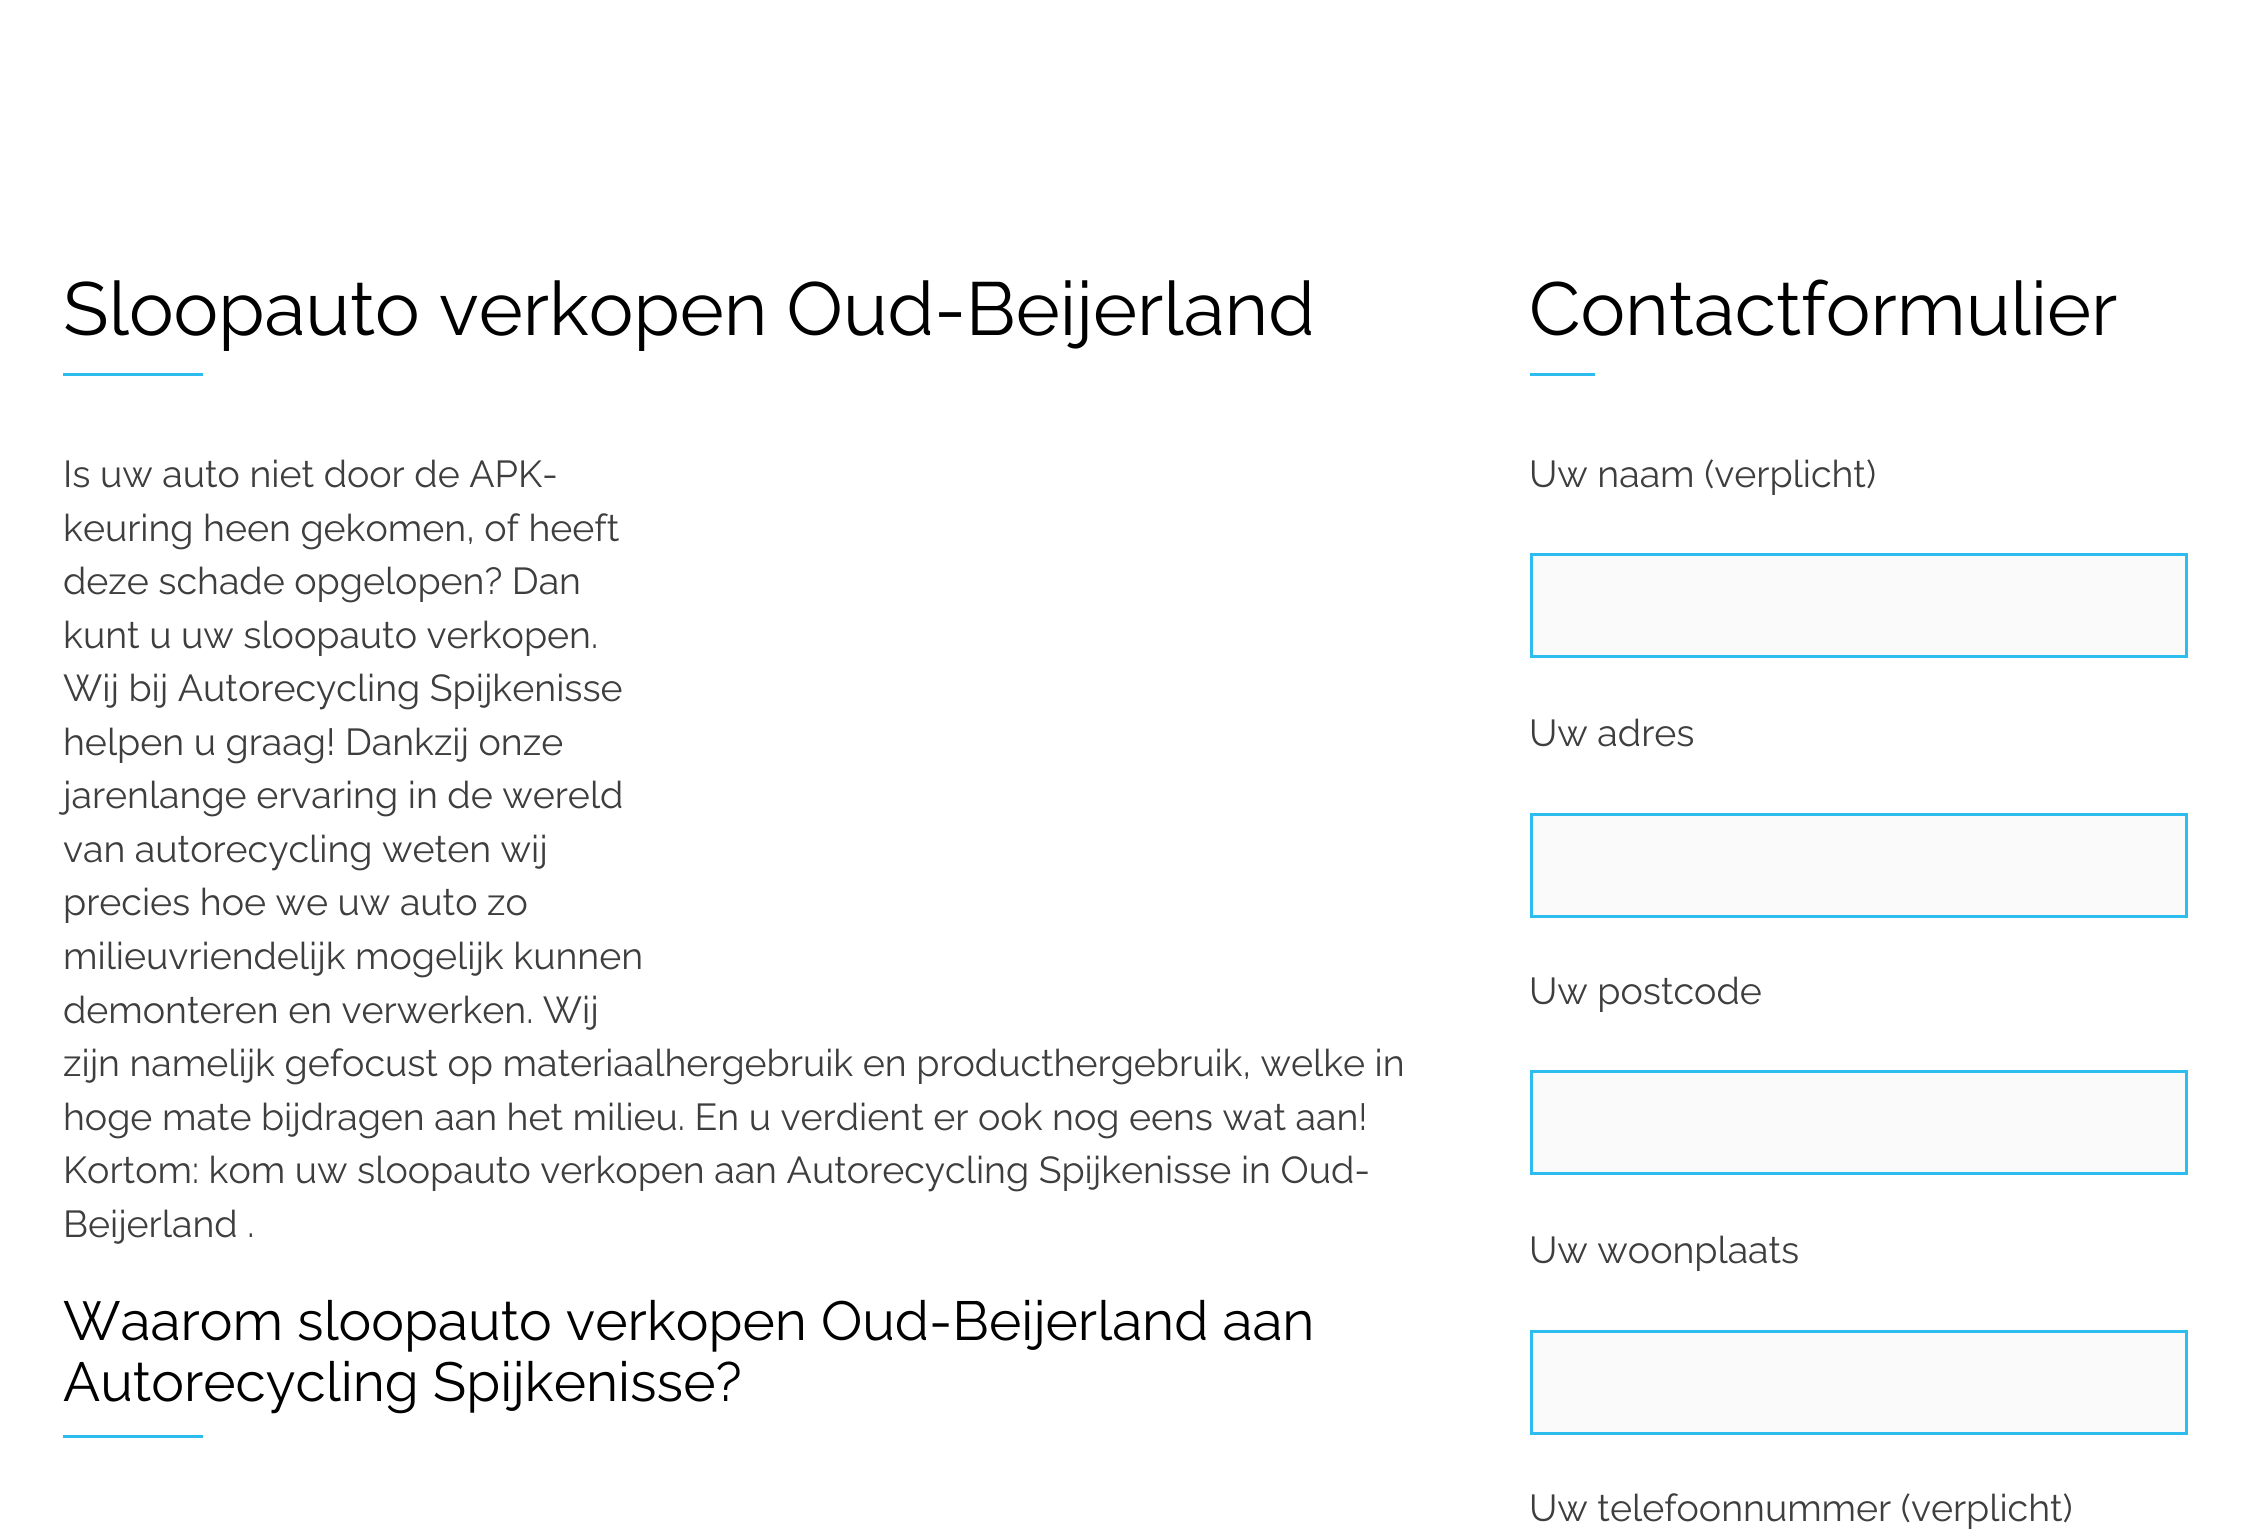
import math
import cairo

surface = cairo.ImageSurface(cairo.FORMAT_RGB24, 2248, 1539)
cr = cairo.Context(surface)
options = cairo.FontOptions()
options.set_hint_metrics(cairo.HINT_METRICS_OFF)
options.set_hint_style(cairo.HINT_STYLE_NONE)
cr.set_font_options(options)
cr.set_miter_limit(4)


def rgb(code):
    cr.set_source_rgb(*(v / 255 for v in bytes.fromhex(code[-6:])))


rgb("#ffffff")
cr.paint()
for x, y, w, h, color in [
    (63, 373, 140, 3, "#2cbcee"),
    (63, 1435, 140, 3, "#2cbcee"),
    (1530, 373, 65, 3, "#2cbcee"),
]:
    rgb(color)
    cr.rectangle(x, y, w, h)
    cr.fill()
rgb("#fafafa")
cr.rectangle(1531.5, 554.5, 655, 102)
cr.fill_preserve()
rgb("#2cbcee")
cr.set_line_width(3)
cr.stroke()
rgb("#fafafa")
cr.rectangle(1531.5, 814.5, 655, 102)
cr.fill_preserve()
rgb("#2cbcee")
cr.stroke()
rgb("#fafafa")
cr.rectangle(1531.5, 1071.5, 655, 102)
cr.fill_preserve()
rgb("#2cbcee")
cr.stroke()
rgb("#fafafa")
cr.rectangle(1531.5, 1331.5, 655, 102)
cr.fill_preserve()
rgb("#2cbcee")
cr.stroke()
cr.select_font_face("Raleway")
cr.set_font_size(75)
rgb("#000000")
cr.move_to(63, 335)
cr.show_text("Sloopauto verkopen Oud-Beijerland")
cr.set_font_size(37.5)
rgb("#3e3e3e")
for x, y, s in [
    (63, 487, "Is uw auto niet door de APK-"),
    (63, 541, "keuring heen gekomen, of heeft"),
    (63, 594, "deze schade opgelopen? Dan"),
    (63, 648, "kunt u uw sloopauto verkopen."),
    (63, 701, "Wij bij Autorecycling Spijkenisse"),
    (63, 755, "helpen u graag! Dankzij onze"),
    (63, 808, "jarenlange ervaring in de wereld"),
    (63, 862, "van autorecycling weten wij"),
    (63, 915, "precies hoe we uw auto zo"),
    (63, 969, "milieuvriendelijk mogelijk kunnen"),
    (63, 1023, "demonteren en verwerken. Wij"),
    (63, 1076, "zijn namelijk gefocust op materiaalhergebruik en producthergebruik, welke in"),
    (63, 1130, "hoge mate bijdragen aan het milieu. En u verdient er ook nog eens wat aan!"),
    (63, 1183, "Kortom: kom uw sloopauto verkopen aan Autorecycling Spijkenisse in Oud-"),
    (63, 1237, "Beijerland ."),
]:
    cr.move_to(x, y)
    cr.show_text(s)
cr.set_font_size(55)
rgb("#000000")
cr.move_to(63, 1340)
cr.show_text("Waarom sloopauto verkopen Oud-Beijerland aan")
cr.move_to(63, 1401)
cr.show_text("Autorecycling Spijkenisse?")
cr.set_font_size(75)
cr.move_to(1529, 335)
cr.show_text("Contactformulier")
cr.set_font_size(37.5)
rgb("#3e3e3e")
for x, y, s in [
    (1529, 487, "Uw naam (verplicht)"),
    (1529, 746, "Uw adres"),
    (1529, 1004, "Uw postcode"),
    (1529, 1263, "Uw woonplaats"),
    (1529, 1521, "Uw telefoonnummer (verplicht)"),
]:
    cr.move_to(x, y)
    cr.show_text(s)
surface.write_to_png("page.png")
